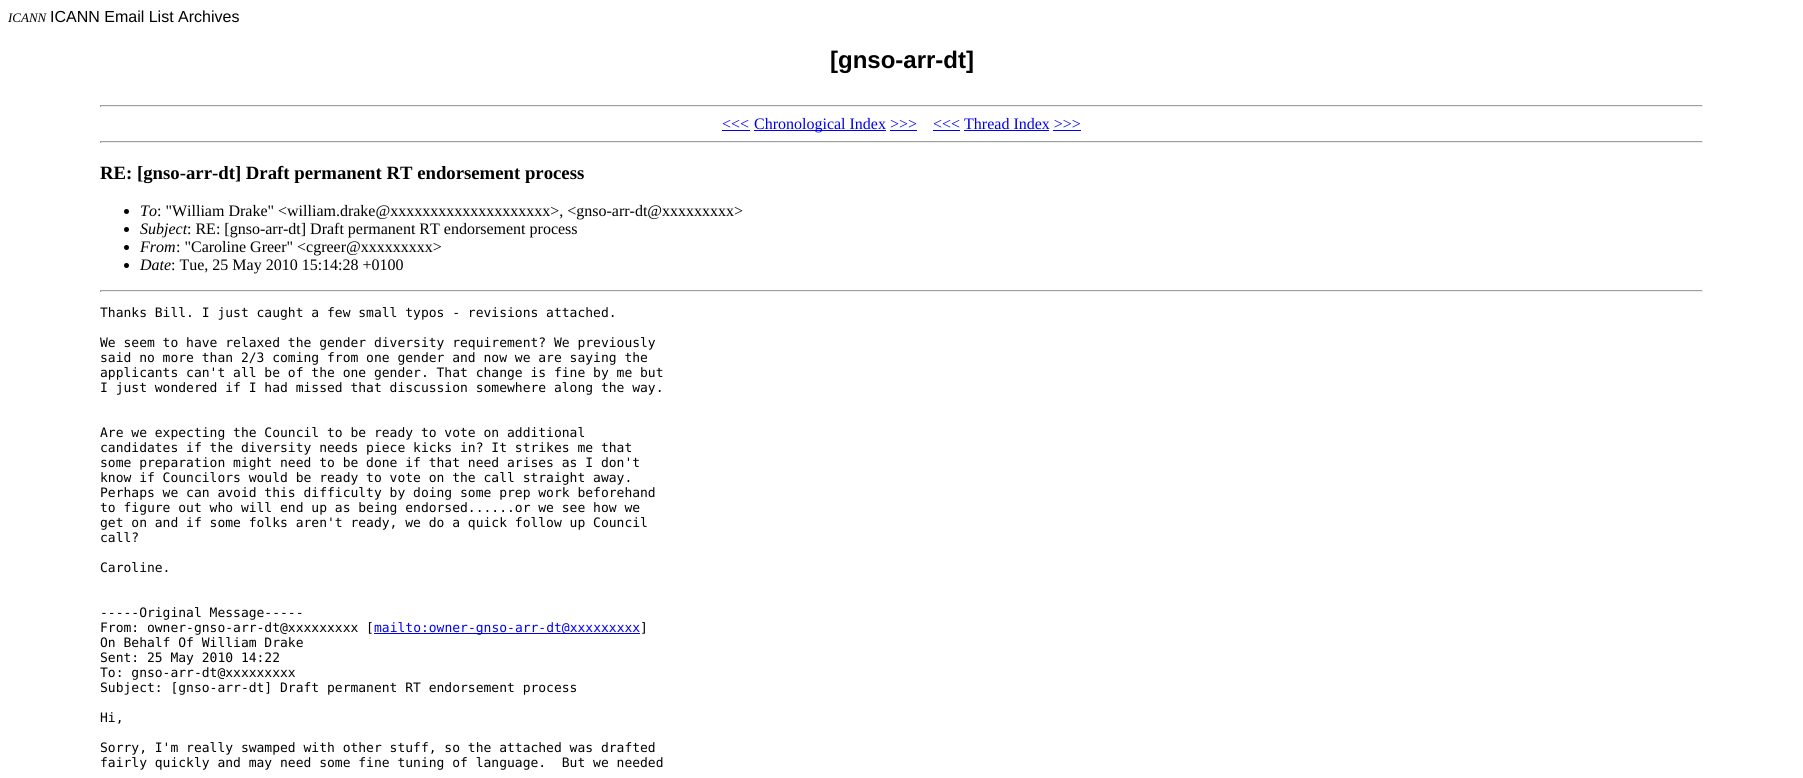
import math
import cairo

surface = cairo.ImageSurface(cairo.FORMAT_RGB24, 1803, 778)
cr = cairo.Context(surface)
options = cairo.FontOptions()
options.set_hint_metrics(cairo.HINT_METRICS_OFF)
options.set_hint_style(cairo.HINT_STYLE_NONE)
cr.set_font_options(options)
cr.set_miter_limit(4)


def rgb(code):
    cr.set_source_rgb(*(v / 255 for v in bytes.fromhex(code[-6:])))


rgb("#ffffff")
cr.paint()
for x, y, w, h, color in [
    (100, 105, 1603, 1, "#9f9f9f"),
    (1702, 105, 1, 2, "#eeeeee"),
    (100, 106, 1603, 1, "#eeeeee"),
    (100, 105, 1, 2, "#9f9f9f"),
    (722, 130, 28, 1, "#0000ee"),
    (754, 130, 132, 1, "#0000ee"),
    (933, 130, 27, 1, "#0000ee"),
    (890, 130, 27, 1, "#0000ee"),
    (964, 130, 85, 1, "#0000ee"),
    (1053, 130, 28, 1, "#0000ee"),
    (100, 141, 1603, 1, "#9f9f9f"),
    (1702, 141, 1, 2, "#eeeeee"),
    (100, 142, 1603, 1, "#eeeeee"),
    (100, 141, 1, 2, "#9f9f9f"),
]:
    rgb(color)
    cr.rectangle(x, y, w, h)
    cr.fill()
rgb("#000000")
cr.arc(126.5, 211.5, 2.5, 0, 2 * math.pi)
cr.fill()
cr.arc(126.5, 229.5, 2.5, 0, 2 * math.pi)
cr.fill()
cr.arc(126.5, 247.5, 2.5, 0, 2 * math.pi)
cr.fill()
cr.arc(126.5, 265.5, 2.5, 0, 2 * math.pi)
cr.fill()
for x, y, w, h, color in [
    (100, 290, 1603, 1, "#9f9f9f"),
    (1702, 290, 1, 2, "#eeeeee"),
    (100, 291, 1603, 1, "#eeeeee"),
    (100, 290, 1, 2, "#9f9f9f"),
    (374, 633, 266, 1, "#0000ee"),
]:
    rgb(color)
    cr.rectangle(x, y, w, h)
    cr.fill()
cr.select_font_face("Liberation Serif", cairo.FONT_SLANT_ITALIC)
cr.set_font_size(13)
rgb("#000000")
cr.move_to(8, 22)
cr.show_text("ICANN")
cr.select_font_face("Liberation Sans")
cr.set_font_size(16)
cr.move_to(50, 22)
cr.show_text("ICANN Email List Archives")
cr.select_font_face("Liberation Sans", cairo.FONT_SLANT_NORMAL, cairo.FONT_WEIGHT_BOLD)
cr.set_font_size(24)
cr.move_to(830, 68)
cr.show_text("[gnso-arr-dt]")
cr.select_font_face("Liberation Serif")
cr.set_font_size(16)
rgb("#0000ee")
for x, y, s in [
    (722, 129, "<<<"),
    (754, 129, "Chronological Index >>>"),
    (933, 129, "<<< Thread Index >>>"),
]:
    cr.move_to(x, y)
    cr.show_text(s)
cr.select_font_face("Liberation Serif", cairo.FONT_SLANT_NORMAL, cairo.FONT_WEIGHT_BOLD)
cr.set_font_size(18.75)
rgb("#000000")
cr.move_to(100, 179)
cr.show_text("RE: [gnso-arr-dt] Draft permanent RT endorsement process")
cr.select_font_face("Liberation Serif", cairo.FONT_SLANT_ITALIC)
cr.set_font_size(16)
cr.move_to(140, 216)
cr.show_text("To")
cr.select_font_face("Liberation Serif")
cr.move_to(157, 216)
cr.show_text(": \"William Drake\" <william.drake@xxxxxxxxxxxxxxxxxxxx>, <gnso-arr-dt@xxxxxxxxx>")
cr.select_font_face("Liberation Serif", cairo.FONT_SLANT_ITALIC)
cr.move_to(140, 234)
cr.show_text("Subject")
cr.select_font_face("Liberation Serif")
cr.move_to(187, 234)
cr.show_text(": RE: [gnso-arr-dt] Draft permanent RT endorsement process")
cr.select_font_face("Liberation Serif", cairo.FONT_SLANT_ITALIC)
cr.move_to(140, 252)
cr.show_text("From")
cr.select_font_face("Liberation Serif")
cr.move_to(176, 252)
cr.show_text(": \"Caroline Greer\" <cgreer@xxxxxxxxx>")
cr.select_font_face("Liberation Serif", cairo.FONT_SLANT_ITALIC)
cr.move_to(140, 270)
cr.show_text("Date")
cr.select_font_face("Liberation Serif")
cr.move_to(171, 270)
cr.show_text(": Tue, 25 May 2010 15:14:28 +0100")
cr.select_font_face("DejaVu Sans Mono")
cr.set_font_size(13)
for x, y, s in [
    (100, 317, "Thanks Bill. I just caught a few small typos - revisions attached."),
    (100, 347, "We seem to have relaxed the gender diversity requirement? We previously"),
    (100, 362, "said no more than 2/3 coming from one gender and now we are saying the"),
    (100, 377, "applicants can't all be of the one gender. That change is fine by me but"),
    (100, 392, "I just wondered if I had missed that discussion somewhere along the way."),
    (100, 437, "Are we expecting the Council to be ready to vote on additional"),
    (100, 452, "candidates if the diversity needs piece kicks in? It strikes me that"),
    (100, 467, "some preparation might need to be done if that need arises as I don't"),
    (100, 482, "know if Councilors would be ready to vote on the call straight away."),
    (100, 497, "Perhaps we can avoid this difficulty by doing some prep work beforehand"),
    (100, 512, "to figure out who will end up as being endorsed......or we see how we"),
    (100, 527, "get on and if some folks aren't ready, we do a quick follow up Council"),
    (100, 542, "call?"),
    (100, 572, "Caroline."),
    (100, 617, "-----Original Message-----"),
    (100, 632, "From: owner-gnso-arr-dt@xxxxxxxxx ["),
]:
    cr.move_to(x, y)
    cr.show_text(s)
rgb("#0000ee")
cr.move_to(374, 632)
cr.show_text("mailto:owner-gnso-arr-dt@xxxxxxxxx")
rgb("#000000")
for x, y, s in [
    (640, 632, "]"),
    (100, 647, "On Behalf Of William Drake"),
    (100, 662, "Sent: 25 May 2010 14:22"),
    (100, 677, "To: gnso-arr-dt@xxxxxxxxx"),
    (100, 692, "Subject: [gnso-arr-dt] Draft permanent RT endorsement process"),
    (100, 722, "Hi,"),
    (100, 752, "Sorry, I'm really swamped with other stuff, so the attached was drafted"),
    (100, 767, "fairly quickly and may need some fine tuning of language.  But we needed"),
]:
    cr.move_to(x, y)
    cr.show_text(s)
surface.write_to_png("page.png")
